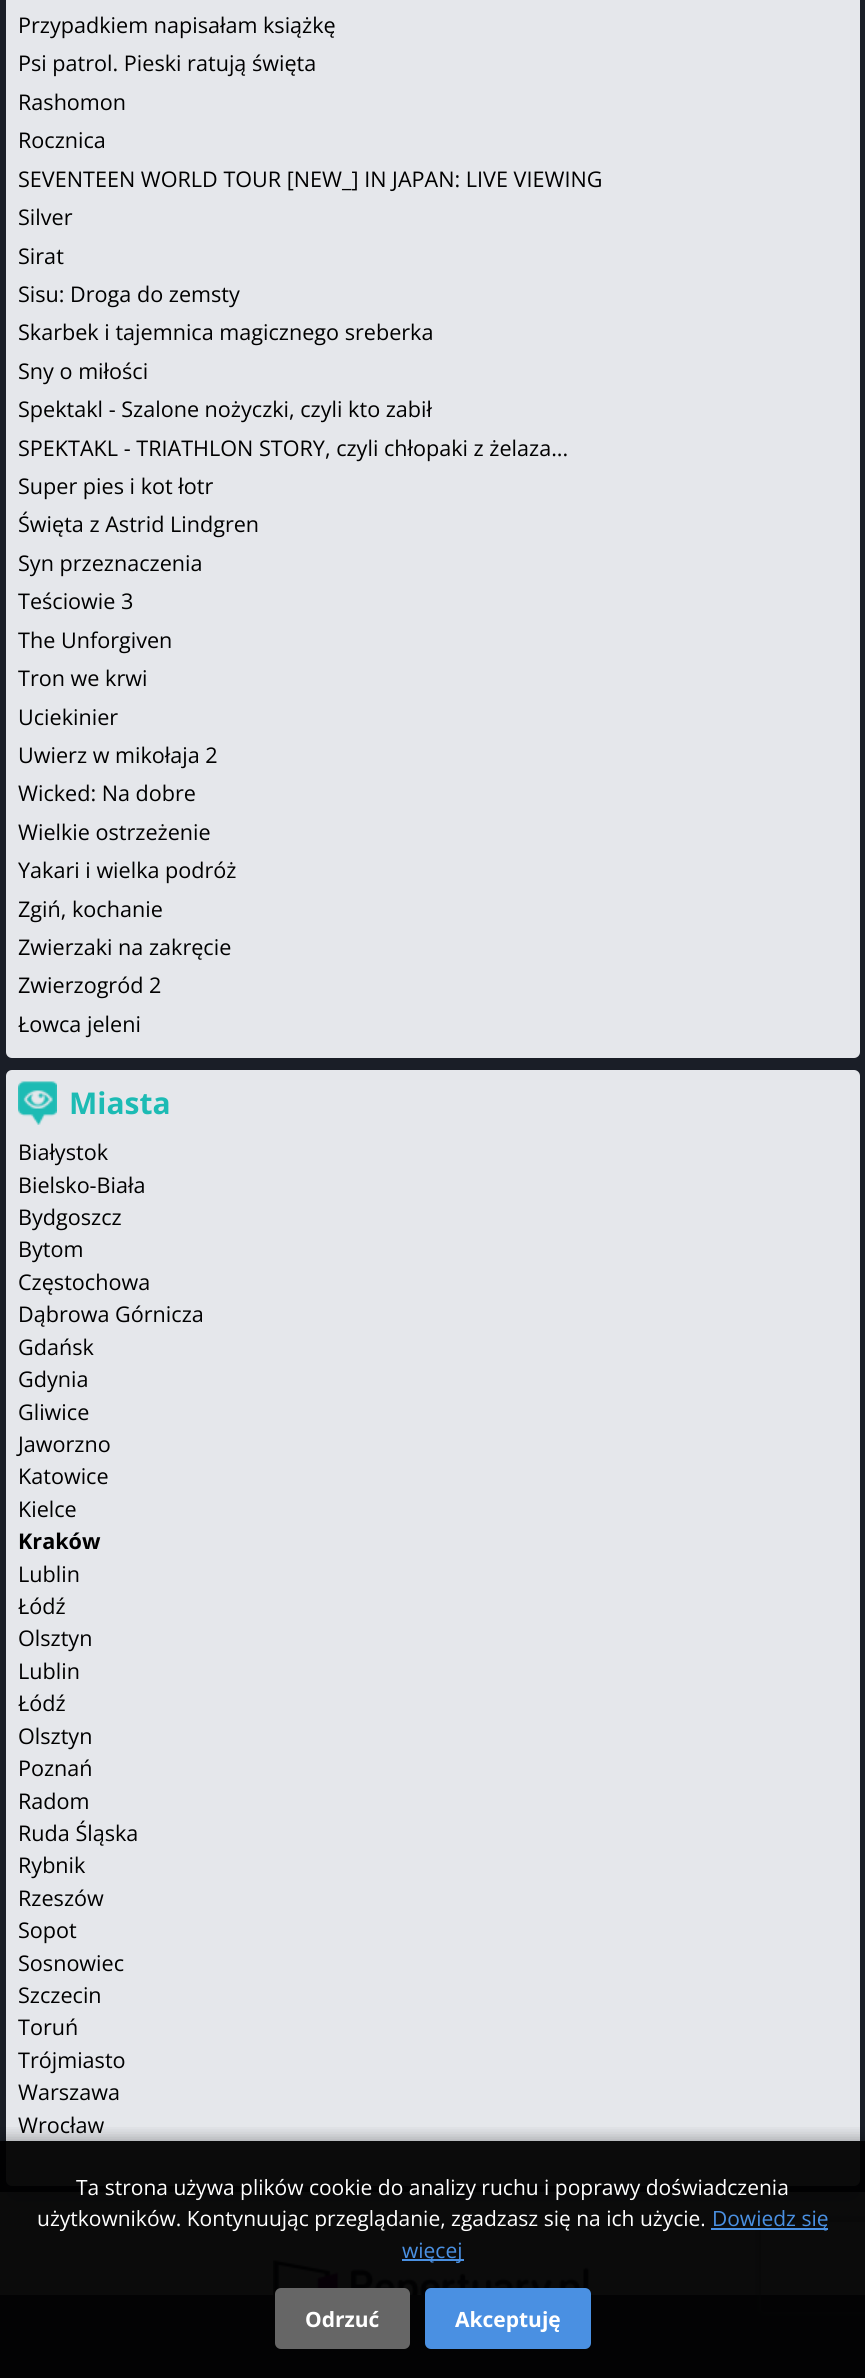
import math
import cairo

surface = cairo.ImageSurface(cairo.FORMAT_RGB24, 865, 2378)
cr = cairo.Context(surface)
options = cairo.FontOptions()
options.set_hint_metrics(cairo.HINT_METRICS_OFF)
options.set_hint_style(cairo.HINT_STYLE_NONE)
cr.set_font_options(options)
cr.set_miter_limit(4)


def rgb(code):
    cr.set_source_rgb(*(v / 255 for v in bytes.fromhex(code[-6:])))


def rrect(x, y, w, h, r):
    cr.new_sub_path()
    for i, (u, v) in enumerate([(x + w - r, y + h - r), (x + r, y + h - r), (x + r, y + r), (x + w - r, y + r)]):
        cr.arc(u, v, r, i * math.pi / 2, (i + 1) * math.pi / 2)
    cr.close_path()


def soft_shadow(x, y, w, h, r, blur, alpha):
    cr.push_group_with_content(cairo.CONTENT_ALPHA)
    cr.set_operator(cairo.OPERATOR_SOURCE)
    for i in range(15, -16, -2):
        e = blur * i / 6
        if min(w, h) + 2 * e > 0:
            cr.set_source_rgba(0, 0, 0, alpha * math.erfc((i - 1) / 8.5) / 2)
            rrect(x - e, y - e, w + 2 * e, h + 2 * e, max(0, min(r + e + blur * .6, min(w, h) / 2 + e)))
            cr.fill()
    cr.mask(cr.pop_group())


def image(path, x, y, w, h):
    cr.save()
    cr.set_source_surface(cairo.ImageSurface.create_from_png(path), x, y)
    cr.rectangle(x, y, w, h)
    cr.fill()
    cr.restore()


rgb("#1a1e27")
cr.paint()
rgb("#e5e7eb")
rrect(6, -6, 854, 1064, 6)
cr.fill()
cr.rectangle(0, 2192, 865, 103)
cr.fill()
rgb("#000000")
soft_shadow(11, 1089, 844, 1107, 1.5, 11, 0.1)
rgb("#e5e7eb")
rrect(6, 1070, 854, 1116, 6)
cr.fill()
image("img/1.png", 18, 1081, 39, 44)
image("img/2.png", 273, 2260, 317, 35)
rgb("#374151")
cr.rectangle(0, 2295, 865, 83)
cr.fill()
cr.save()
cr.rectangle(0, 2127, 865, 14)
cr.clip()
rgb("#000000")
soft_shadow(0, 2138, 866, 238, 0, 7.5, 0.3)
cr.restore()
cr.save()
cr.set_fill_rule(cairo.FILL_RULE_EVEN_ODD)
cr.new_path()
cr.move_to(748, 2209)
cr.line_to(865, 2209)
cr.line_to(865, 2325)
cr.line_to(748, 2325)
cr.close_path()
cr.move_to(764, 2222)
cr.line_to(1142, 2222)
cr.curve_to(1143.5, 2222, 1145, 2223.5, 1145, 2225)
cr.line_to(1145, 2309)
cr.curve_to(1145, 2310.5, 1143.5, 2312, 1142, 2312)
cr.line_to(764, 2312)
cr.curve_to(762.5, 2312, 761, 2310.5, 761, 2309)
cr.line_to(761, 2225)
cr.curve_to(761, 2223.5, 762.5, 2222, 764, 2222)
cr.close_path()
cr.clip()
rgb("#808080")
soft_shadow(761, 2222, 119, 90, 3, 4, 1)
cr.restore()
cr.set_source_rgba(0, 0, 0, 0.95)
cr.rectangle(0, 2141, 865, 237)
cr.fill()
rgb("#4a90e2")
cr.rectangle(711, 2228, 117, 2)
cr.rectangle(402, 2259, 62, 2)
cr.fill()
rgb("#666666")
rrect(275, 2288, 135, 61, 6)
cr.fill()
rgb("#4a90e2")
rrect(425, 2288, 166, 61, 6)
cr.fill()
cr.select_font_face("Open Sans")
cr.set_font_size(21.6)
rgb("#000000")
for x, y, s in [
    (18, 33, "Przypadkiem napisałam książkę"),
    (18, 71, "Psi patrol. Pieski ratują święta"),
    (18, 110, "Rashomon"),
    (18, 148, "Rocznica"),
    (18, 187, "SEVENTEEN WORLD TOUR [NEW_] IN JAPAN: LIVE VIEWING"),
    (18, 225, "Silver"),
    (18, 264, "Sirat"),
    (18, 302, "Sisu: Droga do zemsty"),
    (18, 340, "Skarbek i tajemnica magicznego sreberka"),
    (18, 379, "Sny o miłości"),
    (18, 417, "Spektakl - Szalone nożyczki, czyli kto zabił"),
    (18, 456, "SPEKTAKL - TRIATHLON STORY, czyli chłopaki z żelaza..."),
    (18, 494, "Super pies i kot łotr"),
    (18, 532, "Święta z Astrid Lindgren"),
    (18, 571, "Syn przeznaczenia"),
    (18, 609, "Teściowie 3"),
    (18, 648, "The Unforgiven"),
    (18, 686, "Tron we krwi"),
    (18, 725, "Uciekinier"),
    (18, 763, "Uwierz w mikołaja 2"),
    (18, 801, "Wicked: Na dobre"),
    (18, 840, "Wielkie ostrzeżenie"),
    (18, 878, "Yakari i wielka podróż"),
    (18, 917, "Zgiń, kochanie"),
    (18, 955, "Zwierzaki na zakręcie"),
    (18, 993, "Zwierzogród 2"),
    (18, 1032, "Łowca jeleni"),
]:
    cr.move_to(x, y)
    cr.show_text(s)
cr.select_font_face("Open Sans", cairo.FONT_SLANT_NORMAL, cairo.FONT_WEIGHT_BOLD)
cr.set_font_size(30)
rgb("#1cbbb4")
cr.move_to(69, 1114)
cr.show_text("Miasta")
cr.select_font_face("Open Sans")
cr.set_font_size(21.6)
rgb("#000000")
for x, y, s in [
    (18, 1160, "Białystok"),
    (18, 1193, "Bielsko-Biała"),
    (18, 1225, "Bydgoszcz"),
    (18, 1257, "Bytom"),
    (18, 1290, "Częstochowa"),
    (18, 1322, "Dąbrowa Górnicza"),
    (18, 1355, "Gdańsk"),
    (18, 1387, "Gdynia"),
    (18, 1420, "Gliwice"),
    (18, 1452, "Jaworzno"),
    (18, 1484, "Katowice"),
    (18, 1517, "Kielce"),
]:
    cr.move_to(x, y)
    cr.show_text(s)
cr.select_font_face("Open Sans", cairo.FONT_SLANT_NORMAL, cairo.FONT_WEIGHT_BOLD)
cr.move_to(18, 1549)
cr.show_text("Kraków")
cr.select_font_face("Open Sans")
for x, y, s in [
    (18, 1582, "Lublin"),
    (18, 1614, "Łódź"),
    (18, 1646, "Olsztyn"),
    (18, 1679, "Lublin"),
    (18, 1711, "Łódź"),
    (18, 1744, "Olsztyn"),
    (18, 1776, "Poznań"),
    (18, 1809, "Radom"),
    (18, 1841, "Ruda Śląska"),
    (18, 1873, "Rybnik"),
    (18, 1906, "Rzeszów"),
    (18, 1938, "Sopot"),
    (18, 1971, "Sosnowiec"),
    (18, 2003, "Szczecin"),
    (18, 2035, "Toruń"),
    (18, 2068, "Trójmiasto"),
    (18, 2100, "Warszawa"),
    (18, 2133, "Wrocław"),
]:
    cr.move_to(x, y)
    cr.show_text(s)
cr.set_font_size(21)
rgb("#ffffff")
cr.move_to(76, 2195)
cr.show_text("Ta strona używa plików cookie do analizy ruchu i poprawy doświadczenia")
cr.move_to(37, 2226)
cr.show_text("użytkowników. Kontynuując przeglądanie, zgadzasz się na ich użycie.")
rgb("#4a90e2")
cr.move_to(712, 2226)
cr.show_text("Dowiedz się")
cr.move_to(402, 2258)
cr.show_text("więcej")
cr.select_font_face("Open Sans", cairo.FONT_SLANT_NORMAL, cairo.FONT_WEIGHT_BOLD)
rgb("#ffffff")
cr.move_to(305, 2327)
cr.show_text("Odrzuć")
cr.move_to(455, 2327)
cr.show_text("Akceptuję")
surface.write_to_png("page.png")
